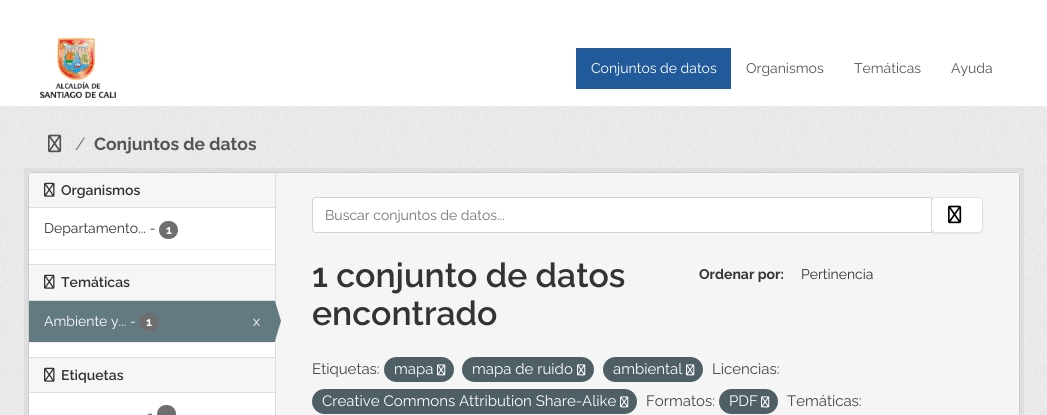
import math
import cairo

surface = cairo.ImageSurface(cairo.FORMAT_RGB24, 1047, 415)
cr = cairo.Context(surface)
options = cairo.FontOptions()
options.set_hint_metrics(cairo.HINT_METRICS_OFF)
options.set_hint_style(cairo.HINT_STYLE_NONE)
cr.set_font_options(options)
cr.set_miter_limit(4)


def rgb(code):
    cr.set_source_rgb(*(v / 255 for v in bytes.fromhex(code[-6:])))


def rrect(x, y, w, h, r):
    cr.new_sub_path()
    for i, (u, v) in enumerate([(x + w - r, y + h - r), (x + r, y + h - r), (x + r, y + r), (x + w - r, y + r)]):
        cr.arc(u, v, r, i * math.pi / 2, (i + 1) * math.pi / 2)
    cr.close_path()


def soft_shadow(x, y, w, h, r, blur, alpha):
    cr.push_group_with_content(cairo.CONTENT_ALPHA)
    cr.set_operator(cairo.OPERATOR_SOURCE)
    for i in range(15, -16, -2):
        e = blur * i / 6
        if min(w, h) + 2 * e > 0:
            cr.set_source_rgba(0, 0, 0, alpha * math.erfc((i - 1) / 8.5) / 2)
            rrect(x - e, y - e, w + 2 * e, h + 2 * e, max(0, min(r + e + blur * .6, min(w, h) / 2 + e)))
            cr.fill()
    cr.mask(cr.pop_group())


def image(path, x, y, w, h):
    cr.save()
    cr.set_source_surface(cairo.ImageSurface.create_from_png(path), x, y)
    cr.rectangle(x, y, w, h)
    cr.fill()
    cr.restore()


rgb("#ffffff")
cr.paint()
image("img/1.png", 40, 38, 76, 60)
rgb("#215a9a")
cr.rectangle(576, 48, 155, 41)
cr.fill()
rgb("#eeeeee")
cr.rectangle(0, 106, 1047, 309)
cr.fill()
image("img/2.png", 0, 106, 1047, 309)
image("img/3.png", 48, 134, 14, 19)
cr.rectangle(26, 170, 996, 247)
cr.set_source_rgba(0, 0, 0, 0.05)
cr.set_line_width(4)
cr.stroke()
rgb("#ffffff")
rrect(28.5, 172.5, 991, 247, 3.5)
cr.fill_preserve()
rgb("#cccccc")
cr.set_line_width(1)
cr.stroke()
rgb("#f6f6f6")
cr.new_path()
cr.move_to(32, 173)
cr.line_to(275, 173)
cr.line_to(275, 208)
cr.line_to(29, 208)
cr.line_to(29, 176)
cr.curve_to(29, 174.5, 30.5, 173, 32, 173)
cr.close_path()
cr.fill()
rgb("#dddddd")
cr.rectangle(29, 207, 246, 1)
cr.fill()
image("img/4.png", 44, 182, 11, 15)
rgb("#6e6e6e")
rrect(159, 221, 19, 18, 9)
cr.fill()
cr.new_path()
cr.move_to(29, 249.5)
cr.line_to(275, 249.5)
rgb("#dddddd")
cr.set_dash([1, 1])
cr.stroke()
for x, y, w, h, color in [
    (29, 265, 246, 35, "#f6f6f6"),
    (29, 264, 246, 1, "#dddddd"),
    (29, 300, 246, 1, "#dddddd"),
]:
    rgb(color)
    cr.rectangle(x, y, w, h)
    cr.fill()
image("img/4.png", 44, 274, 11, 15)
rgb("#647a82")
cr.rectangle(29, 301, 246, 41)
cr.fill()
rgb("#6e6e6e")
rrect(139, 313, 20, 18, 9)
cr.fill()
rgb("#dddddd")
cr.rectangle(275, 173, 1, 242)
cr.fill()
rgb("#f5f5f5")
cr.rectangle(276, 173, 743, 242)
cr.fill()
rgb("#647a82")
cr.new_path()
cr.move_to(275, 341)
cr.line_to(275, 301)
cr.line_to(281, 321)
cr.close_path()
cr.fill()
cr.new_path()
cr.move_to(29, 342.5)
cr.line_to(275, 342.5)
rgb("#dddddd")
cr.stroke()
for x, y, w, h, color in [
    (29, 358, 246, 34, "#f6f6f6"),
    (29, 357, 246, 1, "#dddddd"),
    (29, 392, 246, 1, "#dddddd"),
]:
    rgb(color)
    cr.rectangle(x, y, w, h)
    cr.fill()
image("img/4.png", 44, 367, 11, 15)
rgb("#6e6e6e")
rrect(157, 405, 19, 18, 9)
cr.fill()
rgb("#ffffff")
cr.new_path()
cr.move_to(316, 197.5)
cr.line_to(931.5, 197.5)
cr.line_to(931.5, 232.5)
cr.line_to(316, 232.5)
cr.curve_to(314, 232.5, 312.5, 231, 312.5, 229)
cr.line_to(312.5, 201)
cr.curve_to(312.5, 199, 314, 197.5, 316, 197.5)
cr.close_path()
cr.fill_preserve()
rgb("#ced4da")
cr.set_dash([])
cr.stroke()
rgb("#000000")
soft_shadow(931, 198, 52, 36, 5, 0.5, 0.07)
rgb("#ffffff")
rrect(931.5, 197.5, 51, 35, 4.5)
cr.fill_preserve()
rgb("#dee2e6")
cr.stroke()
image("img/5.png", 948, 205, 14, 19)
rgb("#4e5f65")
rrect(384, 357, 70, 25, 12.5)
cr.fill()
image("img/6.png", 437, 364, 9, 12)
rrect(462, 357, 132, 25, 12.5)
cr.fill()
image("img/6.png", 577, 364, 9, 12)
rrect(603, 357, 100, 25, 12.5)
cr.fill()
image("img/6.png", 686, 364, 9, 12)
rrect(312, 389, 325, 25, 12.5)
cr.fill()
image("img/6.png", 620, 396, 9, 12)
rrect(719, 389, 59, 25, 12.5)
cr.fill()
image("img/6.png", 761, 396, 9, 12)
cr.select_font_face("Raleway")
cr.set_font_size(14)
rgb("#ffffff")
cr.move_to(591, 73)
cr.show_text("Conjuntos de datos")
rgb("#555555")
for x, y, s in [
    (746, 73, "Organismos"),
    (854, 73, "Temáticas"),
    (951, 73, "Ayuda"),
]:
    cr.move_to(x, y)
    cr.show_text(s)
cr.set_font_size(17.5)
rgb("#6c757d")
cr.move_to(75, 150)
cr.show_text("/")
cr.select_font_face("Raleway", cairo.FONT_SLANT_NORMAL, cairo.FONT_WEIGHT_BOLD)
rgb("#555555")
cr.move_to(94, 150)
cr.show_text("Conjuntos de datos")
cr.select_font_face("Raleway SemiBold")
cr.set_font_size(14)
rgb("#333333")
cr.move_to(61, 195)
cr.show_text("Organismos")
cr.select_font_face("Raleway")
cr.move_to(44, 233)
cr.show_text("Departamento... -")
cr.select_font_face("Raleway", cairo.FONT_SLANT_NORMAL, cairo.FONT_WEIGHT_BOLD)
cr.set_font_size(12)
rgb("#ffffff")
cr.move_to(166, 234)
cr.show_text("1")
cr.select_font_face("Raleway SemiBold")
cr.set_font_size(14)
rgb("#333333")
cr.move_to(61, 287)
cr.show_text("Temáticas")
cr.select_font_face("Raleway")
rgb("#ffffff")
cr.move_to(44, 326)
cr.show_text("Ambiente y... -")
cr.select_font_face("Raleway", cairo.FONT_SLANT_NORMAL, cairo.FONT_WEIGHT_BOLD)
cr.set_font_size(12)
cr.move_to(146, 326)
cr.show_text("1")
cr.select_font_face("Raleway")
cr.set_font_size(14)
cr.move_to(253, 326)
cr.show_text("x")
cr.select_font_face("Raleway SemiBold")
rgb("#333333")
cr.move_to(61, 380)
cr.show_text("Etiquetas")
cr.select_font_face("Raleway")
cr.move_to(147, 418)
cr.show_text("-")
rgb("#6c757d")
cr.move_to(325, 220)
cr.show_text("Buscar conjuntos de datos...")
cr.select_font_face("Raleway SemiBold")
cr.set_font_size(33.75)
rgb("#333333")
cr.move_to(312, 287)
cr.show_text("1 conjunto de datos")
cr.move_to(312, 325)
cr.show_text("encontrado")
cr.select_font_face("Raleway", cairo.FONT_SLANT_NORMAL, cairo.FONT_WEIGHT_BOLD)
cr.set_font_size(14)
cr.move_to(699, 279)
cr.show_text("Ordenar por:")
cr.select_font_face("Raleway")
cr.move_to(801, 279)
cr.show_text("Pertinencia")
cr.set_font_size(15)
rgb("#444444")
cr.move_to(312, 374)
cr.show_text("Etiquetas:")
rgb("#ffffff")
for x, y, s in [
    (394, 374, "mapa"),
    (472, 374, "mapa de ruido"),
    (613, 374, "ambiental"),
]:
    cr.move_to(x, y)
    cr.show_text(s)
rgb("#444444")
cr.move_to(712, 374)
cr.show_text("Licencias:")
rgb("#ffffff")
cr.move_to(322, 406)
cr.show_text("Creative Commons Attribution Share-Alike")
rgb("#444444")
cr.move_to(646, 406)
cr.show_text("Formatos:")
rgb("#ffffff")
cr.move_to(729, 406)
cr.show_text("PDF")
rgb("#444444")
cr.move_to(787, 406)
cr.show_text("Temáticas:")
surface.write_to_png("page.png")
